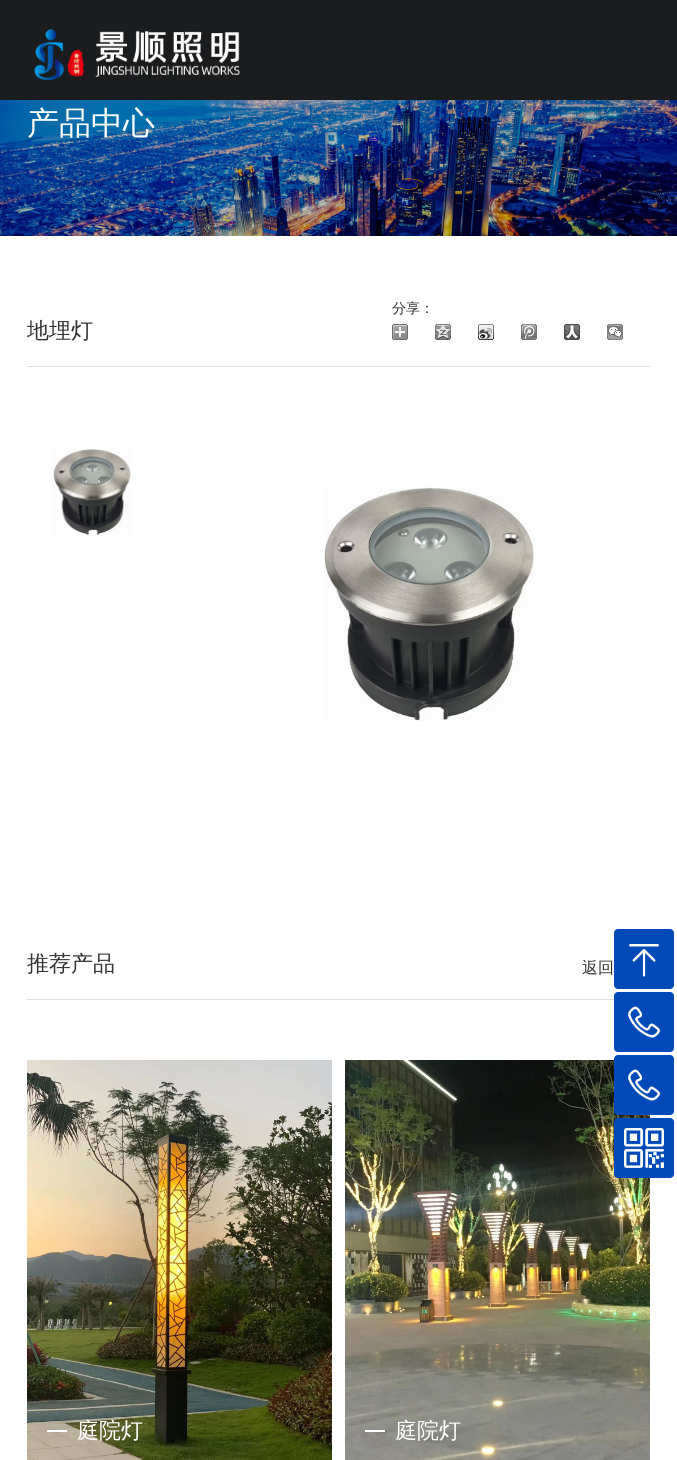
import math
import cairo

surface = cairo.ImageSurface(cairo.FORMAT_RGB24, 677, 1460)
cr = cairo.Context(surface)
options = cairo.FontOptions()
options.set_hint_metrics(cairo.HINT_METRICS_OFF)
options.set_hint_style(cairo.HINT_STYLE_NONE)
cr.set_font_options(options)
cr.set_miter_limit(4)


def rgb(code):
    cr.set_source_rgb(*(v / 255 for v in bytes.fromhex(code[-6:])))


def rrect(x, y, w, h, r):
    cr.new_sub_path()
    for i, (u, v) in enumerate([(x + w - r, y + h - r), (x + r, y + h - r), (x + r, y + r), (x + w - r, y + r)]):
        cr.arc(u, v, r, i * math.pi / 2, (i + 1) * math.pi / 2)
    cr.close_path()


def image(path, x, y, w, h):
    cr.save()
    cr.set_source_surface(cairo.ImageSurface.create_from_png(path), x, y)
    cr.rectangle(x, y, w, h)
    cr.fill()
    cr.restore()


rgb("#ffffff")
cr.paint()
rgb("#1b1c1e")
cr.rectangle(0, 0, 677, 100)
cr.fill()
image("img/1.png", 34, 28, 206, 53)
image("img/2.png", 0, 100, 677, 136)
rgb("#dfdfdf")
cr.rectangle(27, 366, 623, 1)
cr.fill()
image("img/3.png", 392, 324, 16, 16)
image("img/4.png", 435, 324, 16, 16)
image("img/5.png", 478, 324, 16, 16)
image("img/6.png", 521, 324, 16, 16)
image("img/7.png", 564, 324, 16, 16)
image("img/8.png", 607, 324, 16, 16)
image("img/9.png", 53, 449, 78, 86)
image("img/10.png", 324, 487, 211, 234)
cr.rectangle(27, 999, 587, 1)
cr.fill()
image("img/11.png", 27, 1060, 305, 400)
rgb("#ffffff")
cr.rectangle(47, 1430, 20, 2)
cr.fill()
image("img/12.png", 345, 1060, 305, 400)
cr.rectangle(365, 1430, 20, 2)
cr.fill()
rgb("#0049b9")
rrect(614, 929, 60, 60, 4)
cr.fill()
image("img/13.png", 629, 944, 30, 33)
rrect(614, 992, 60, 60, 4)
cr.fill()
image("img/14.png", 628, 1006, 33, 32)
rrect(614, 1055, 60, 60, 4)
cr.fill()
image("img/14.png", 628, 1069, 33, 32)
rrect(614, 1118, 60, 60, 4)
cr.fill()
image("img/15.png", 624, 1128, 40, 40)
cr.select_font_face("WenQuanYi Zen Hei Medium")
cr.set_font_size(32)
rgb("#ffffff")
cr.move_to(27, 134)
cr.show_text("产品中心")
cr.set_font_size(14)
rgb("#333333")
cr.move_to(392, 313)
cr.show_text("分享：")
cr.set_font_size(22)
cr.move_to(27, 338)
cr.show_text("地埋灯")
cr.move_to(27, 971)
cr.show_text("推荐产品")
cr.set_font_size(16)
cr.move_to(582, 973)
cr.show_text("返回")
cr.set_font_size(22)
rgb("#ffffff")
cr.move_to(77, 1438)
cr.show_text("庭院灯")
cr.move_to(395, 1438)
cr.show_text("庭院灯")
surface.write_to_png("page.png")
